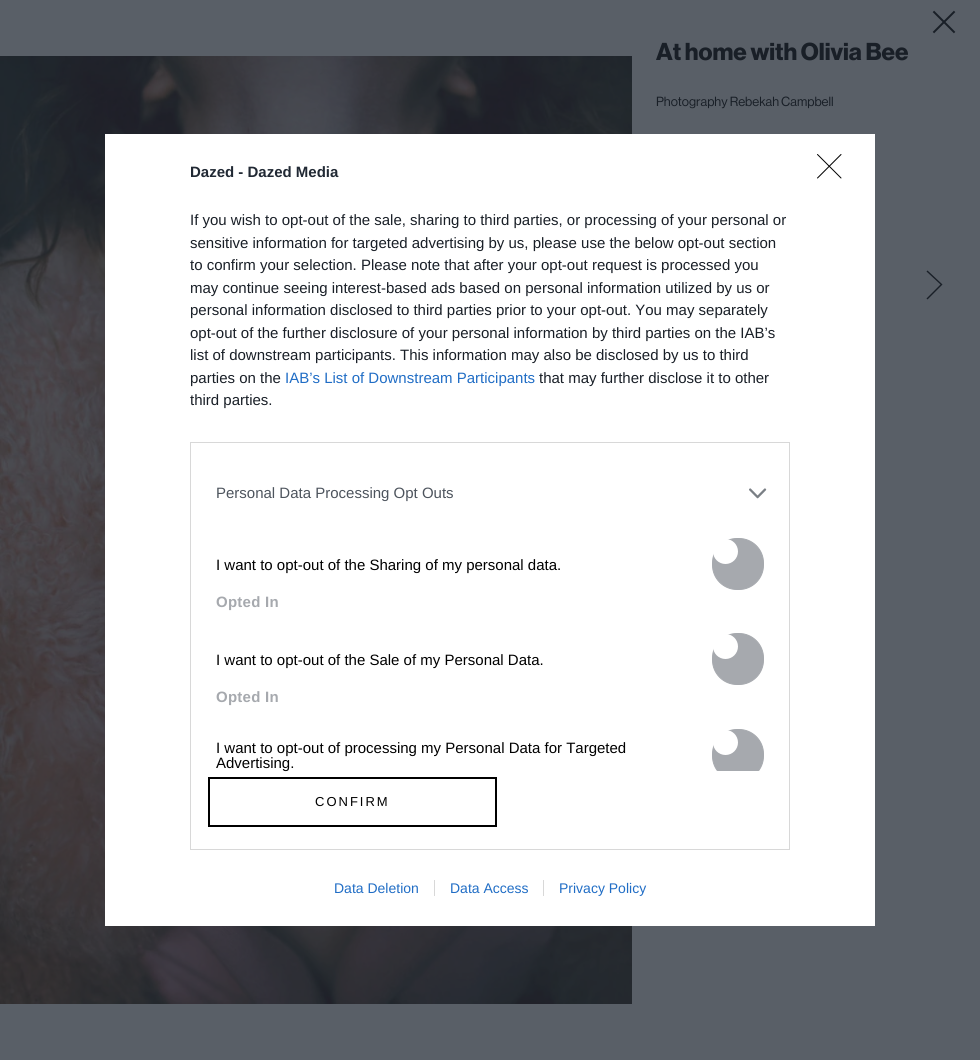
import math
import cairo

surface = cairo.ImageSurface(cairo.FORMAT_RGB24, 980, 1060)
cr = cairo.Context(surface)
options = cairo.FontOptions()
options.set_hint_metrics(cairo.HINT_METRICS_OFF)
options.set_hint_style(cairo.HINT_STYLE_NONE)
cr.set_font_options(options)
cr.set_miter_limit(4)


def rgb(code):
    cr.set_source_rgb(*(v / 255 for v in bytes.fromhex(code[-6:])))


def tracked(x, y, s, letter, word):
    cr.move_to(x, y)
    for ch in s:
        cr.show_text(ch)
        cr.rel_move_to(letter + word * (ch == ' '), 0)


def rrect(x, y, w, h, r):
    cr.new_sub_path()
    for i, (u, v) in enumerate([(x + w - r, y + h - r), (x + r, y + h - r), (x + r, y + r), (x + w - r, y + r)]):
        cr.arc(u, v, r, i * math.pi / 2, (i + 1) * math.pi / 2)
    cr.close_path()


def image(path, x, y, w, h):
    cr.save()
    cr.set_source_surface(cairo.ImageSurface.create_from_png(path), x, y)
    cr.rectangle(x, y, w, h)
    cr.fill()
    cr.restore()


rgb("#595f67")
cr.paint()
image("img/1.png", 0, 56, 632, 948)
image("img/2.png", 932, 10, 24, 24)
rgb("#191f27")
cr.new_path()
cr.move_to(940.5, 284.5)
cr.line_to(926.5, 271.5)
cr.line_to(927.5, 270.5)
cr.line_to(942.5, 284.5)
cr.line_to(927.5, 299.5)
cr.line_to(926.5, 298.5)
cr.close_path()
cr.fill()
rgb("#ffffff")
cr.rectangle(105, 134, 770, 792)
cr.fill()
cr.rectangle(190.5, 442.5, 599, 407)
rgb("#d8d8d8")
cr.set_line_width(1)
cr.stroke()
image("img/3.png", 749, 488, 18, 11)
rgb("#a6a9ae")
rrect(712.5, 538.5, 51, 51, 24.5)
cr.fill_preserve()
cr.stroke()
rgb("#ffffff")
cr.arc(725.5, 551.5, 12.5, 0, 2 * math.pi)
cr.fill()
rgb("#a6a9ae")
rrect(712.5, 633.5, 51, 51, 24.5)
cr.fill_preserve()
cr.stroke()
rgb("#ffffff")
cr.arc(725.5, 646.5, 12.5, 0, 2 * math.pi)
cr.fill()
cr.save()
cr.rectangle(201, 453, 578, 318)
cr.clip()
rgb("#a6a9ae")
rrect(712.5, 729.5, 51, 51, 24.5)
cr.fill_preserve()
cr.stroke()
cr.restore()
cr.arc(725.5, 742.5, 12.5, 0, 2 * math.pi)
cr.fill()
cr.rectangle(209, 778, 287, 48)
rgb("#000000")
cr.set_line_width(2)
cr.stroke()
cr.new_path()
cr.move_to(817.5, 154.5)
cr.line_to(841, 178)
cr.move_to(841, 154.5)
cr.line_to(817.5, 178)
cr.set_line_width(1)
cr.set_line_cap(cairo.LINE_CAP_ROUND)
cr.set_line_join(cairo.LINE_JOIN_ROUND)
cr.stroke()
rgb("#d8d8d8")
cr.rectangle(434, 880, 1, 16)
cr.fill()
cr.rectangle(543, 880, 1, 16)
cr.fill()
cr.select_font_face("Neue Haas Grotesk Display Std", cairo.FONT_SLANT_NORMAL, cairo.FONT_WEIGHT_BOLD)
cr.set_font_size(24)
rgb("#191f27")
cr.move_to(656, 60)
cr.show_text("At home with Olivia Bee")
cr.select_font_face("Neue Haas Grotesk Display Std")
cr.set_font_size(13)
cr.move_to(656, 106)
cr.show_text("Photography Rebekah Campbell")
cr.select_font_face("Liberation Sans", cairo.FONT_SLANT_NORMAL, cairo.FONT_WEIGHT_BOLD)
cr.set_font_size(15)
rgb("#212934")
cr.move_to(190, 177)
cr.show_text("Dazed - Dazed Media")
cr.select_font_face("Liberation Sans")
rgb("#191f27")
for x, y, s in [
    (190, 225, "If you wish to opt-out of the sale, sharing to third parties, or processing of your personal or"),
    (190, 248, "sensitive information for targeted advertising by us, please use the below opt-out section"),
    (190, 270, "to confirm your selection. Please note that after your opt-out request is processed you"),
    (190, 293, "may continue seeing interest-based ads based on personal information utilized by us or"),
    (190, 315, "personal information disclosed to third parties prior to your opt-out. You may separately"),
    (190, 338, "opt-out of the further disclosure of your personal information by third parties on the IAB’s"),
    (190, 360, "list of downstream participants. This information may also be disclosed by us to third"),
    (190, 383, "parties on the"),
]:
    cr.move_to(x, y)
    cr.show_text(s)
rgb("#206dc5")
cr.move_to(285, 383)
cr.show_text("IAB’s List of Downstream Participants")
rgb("#191f27")
cr.move_to(539, 383)
cr.show_text("that may further disclose it to other")
cr.move_to(190, 405)
cr.show_text("third parties.")
rgb("#4d545d")
cr.move_to(216, 498)
cr.show_text("Personal Data Processing Opt Outs")
rgb("#000000")
cr.move_to(216, 570)
cr.show_text("I want to opt-out of the Sharing of my personal data.")
cr.select_font_face("Liberation Sans", cairo.FONT_SLANT_NORMAL, cairo.FONT_WEIGHT_BOLD)
rgb("#a6a9ae")
tracked(216, 607, "Opted In", 0.25, 0)
cr.select_font_face("Liberation Sans")
rgb("#000000")
cr.move_to(216, 665)
cr.show_text("I want to opt-out of the Sale of my Personal Data.")
cr.select_font_face("Liberation Sans", cairo.FONT_SLANT_NORMAL, cairo.FONT_WEIGHT_BOLD)
rgb("#a6a9ae")
tracked(216, 702, "Opted In", 0.25, 0)
cr.select_font_face("Liberation Sans")
rgb("#000000")
cr.move_to(216, 753)
cr.show_text("I want to opt-out of processing my Personal Data for Targeted")
cr.move_to(216, 768)
cr.show_text("Advertising.")
cr.set_font_size(13)
tracked(315, 806, "CONFIRM", 2, 0)
cr.set_font_size(14)
rgb("#206dc5")
for x, y, s in [
    (334, 893, "Data Deletion"),
    (450, 893, "Data Access"),
    (559, 893, "Privacy Policy"),
]:
    cr.move_to(x, y)
    cr.show_text(s)
surface.write_to_png("page.png")
